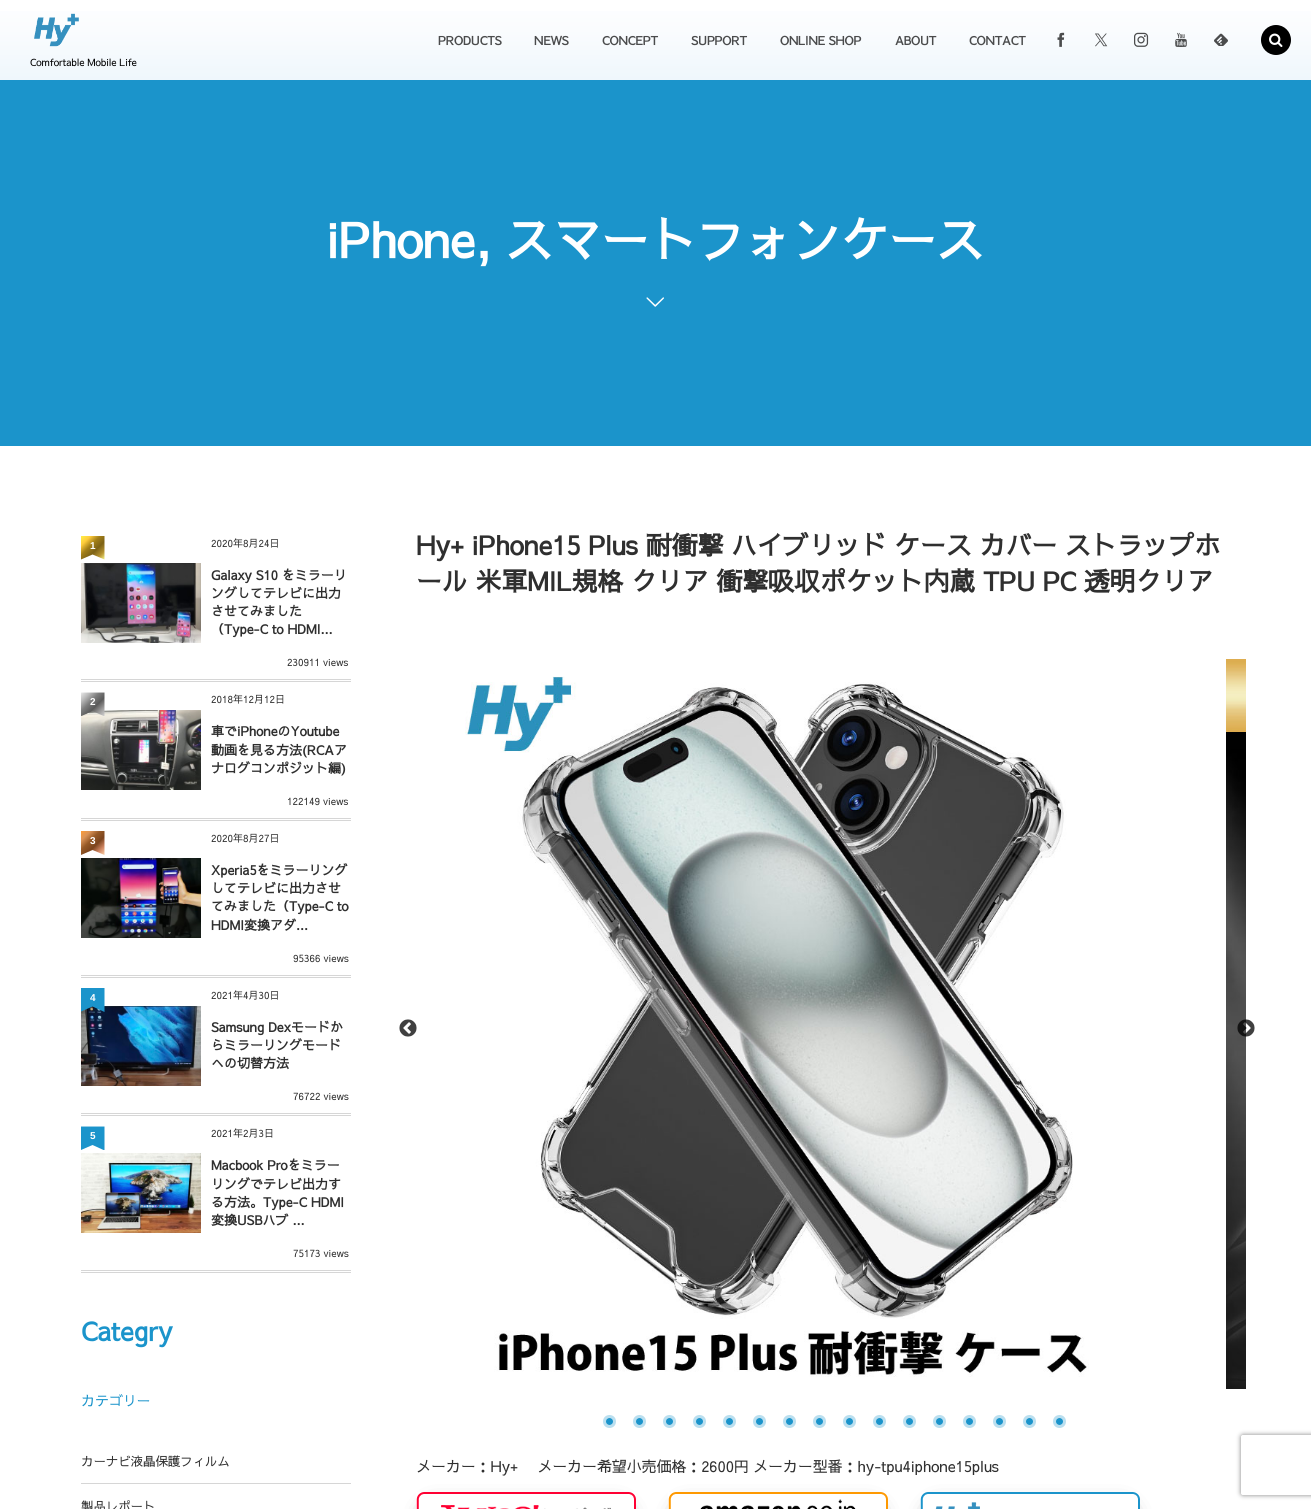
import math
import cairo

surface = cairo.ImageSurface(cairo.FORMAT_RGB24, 1311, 1509)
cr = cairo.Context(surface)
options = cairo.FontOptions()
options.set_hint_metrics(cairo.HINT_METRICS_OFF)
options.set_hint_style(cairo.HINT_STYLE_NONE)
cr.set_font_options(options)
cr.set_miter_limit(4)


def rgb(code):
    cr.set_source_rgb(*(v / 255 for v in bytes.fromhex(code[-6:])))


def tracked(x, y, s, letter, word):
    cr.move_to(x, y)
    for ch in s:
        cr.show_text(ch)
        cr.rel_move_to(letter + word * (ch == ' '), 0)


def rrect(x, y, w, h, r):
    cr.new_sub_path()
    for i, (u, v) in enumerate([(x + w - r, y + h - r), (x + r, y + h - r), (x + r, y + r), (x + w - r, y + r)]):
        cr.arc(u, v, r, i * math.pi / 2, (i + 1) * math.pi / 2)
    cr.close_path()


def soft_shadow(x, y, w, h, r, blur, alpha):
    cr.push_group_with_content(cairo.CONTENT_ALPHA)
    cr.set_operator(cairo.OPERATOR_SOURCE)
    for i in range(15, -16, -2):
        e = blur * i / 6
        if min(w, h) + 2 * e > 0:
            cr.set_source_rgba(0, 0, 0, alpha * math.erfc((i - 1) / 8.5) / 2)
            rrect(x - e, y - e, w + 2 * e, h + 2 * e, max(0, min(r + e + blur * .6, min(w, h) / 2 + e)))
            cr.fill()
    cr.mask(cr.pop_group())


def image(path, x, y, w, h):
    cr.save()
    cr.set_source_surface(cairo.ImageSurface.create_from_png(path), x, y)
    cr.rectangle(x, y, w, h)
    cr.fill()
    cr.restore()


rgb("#ffffff")
cr.paint()
gradient = cairo.LinearGradient(656, 0, 656, 80)
gradient.add_color_stop_rgba(0, 0.996, 0.996, 1, 1)
gradient.add_color_stop_rgba(0.38, 0.98, 0.988, 0.996, 1)
gradient.add_color_stop_rgba(1, 0.937, 0.969, 0.988, 1)
cr.set_source(gradient)
cr.rectangle(0, 11, 1311, 69)
cr.fill()
image("img/1.png", 1057, 32, 8, 15)
image("img/2.png", 1095, 33, 13, 14)
image("img/3.png", 1134, 32, 15, 15)
image("img/4.png", 1175, 32, 12, 15)
image("img/5.png", 1214, 33, 14, 13)
image("img/6.png", 34, 13, 45, 34)
rgb("#000000")
cr.arc(1276, 40, 15, 0, 2 * math.pi)
cr.fill()
image("img/7.png", 1269, 33, 14, 14)
rgb("#1b94cb")
cr.rectangle(0, 80, 1311, 366)
cr.fill()
image("img/8.png", 646, 297, 18, 10)
rgb("#d6d6d6")
cr.rectangle(81, 679, 270, 1)
cr.fill()
cr.rectangle(81, 681, 270, 1)
cr.fill()
gradient = cairo.LinearGradient(81, 536, 105, 560)
gradient.add_color_stop_rgba(0, 1, 0.945, 0.275, 1)
gradient.add_color_stop_rgba(0.2, 1, 0.8, 0.235, 1)
gradient.add_color_stop_rgba(0.4, 0.635, 0.494, 0.094, 1)
gradient.add_color_stop_rgba(0.6, 0.49, 0.384, 0.086, 1)
gradient.add_color_stop_rgba(0.8, 0.71, 0.573, 0.192, 1)
gradient.add_color_stop_rgba(1, 1, 1, 0.569, 1)
cr.set_source(gradient)
cr.new_path()
cr.move_to(81, 536)
cr.line_to(104.5, 536)
cr.line_to(104.5, 559.5)
cr.line_to(92.5, 554.5)
cr.line_to(81, 559.5)
cr.close_path()
cr.fill()
image("img/9.png", 81, 563, 120, 80)
rgb("#d6d6d6")
cr.rectangle(81, 818, 270, 1)
cr.fill()
cr.rectangle(81, 820, 270, 1)
cr.fill()
image("img/10.png", 81, 710, 120, 80)
gradient = cairo.LinearGradient(81, 692, 105, 716)
gradient.add_color_stop_rgba(0, 0.925, 0.925, 0.925, 1)
gradient.add_color_stop_rgba(0.2, 0.733, 0.733, 0.733, 1)
gradient.add_color_stop_rgba(0.4, 0.49, 0.49, 0.49, 1)
gradient.add_color_stop_rgba(0.6, 0.353, 0.353, 0.353, 1)
gradient.add_color_stop_rgba(0.8, 0.62, 0.616, 0.616, 1)
gradient.add_color_stop_rgba(1, 0.831, 0.831, 0.831, 1)
cr.set_source(gradient)
cr.new_path()
cr.move_to(104.5, 692.5)
cr.line_to(104.5, 716)
cr.line_to(103.5, 716)
cr.line_to(92.5, 711)
cr.line_to(81.5, 716)
cr.line_to(81, 716)
cr.line_to(81, 692.5)
cr.close_path()
cr.fill()
rgb("#d6d6d6")
cr.rectangle(81, 975, 270, 1)
cr.fill()
cr.rectangle(81, 977, 270, 1)
cr.fill()
gradient = cairo.LinearGradient(81, 831, 105, 855)
gradient.add_color_stop_rgba(0, 0.996, 0.612, 0.216, 1)
gradient.add_color_stop_rgba(0.2, 0.855, 0.576, 0.337, 1)
gradient.add_color_stop_rgba(0.4, 0.588, 0.349, 0.149, 1)
gradient.add_color_stop_rgba(0.6, 0.482, 0.267, 0.114, 1)
gradient.add_color_stop_rgba(0.8, 0.82, 0.529, 0.392, 1)
gradient.add_color_stop_rgba(1, 1, 0.839, 0.675, 1)
cr.set_source(gradient)
cr.new_path()
cr.move_to(104.5, 831)
cr.line_to(104.5, 855)
cr.line_to(92.5, 850)
cr.line_to(81, 855)
cr.line_to(81, 831)
cr.close_path()
cr.fill()
image("img/11.png", 81, 858, 120, 80)
rgb("#d6d6d6")
cr.rectangle(81, 1113, 270, 1)
cr.fill()
cr.rectangle(81, 1115, 270, 1)
cr.fill()
image("img/12.png", 81, 1006, 120, 80)
rgb("#1b94cb")
cr.new_path()
cr.move_to(81, 988)
cr.line_to(104.5, 988)
cr.line_to(104.5, 1012)
cr.line_to(92.5, 1006.5)
cr.line_to(81, 1011.5)
cr.close_path()
cr.fill()
rgb("#d6d6d6")
cr.rectangle(81, 1270, 270, 1)
cr.fill()
cr.rectangle(81, 1272, 270, 1)
cr.fill()
rgb("#1b94cb")
cr.new_path()
cr.move_to(104.5, 1126.5)
cr.line_to(104.5, 1150)
cr.line_to(103.5, 1150)
cr.line_to(92.5, 1145)
cr.line_to(81, 1150)
cr.line_to(81, 1126.5)
cr.close_path()
cr.fill()
image("img/13.png", 81, 1153, 120, 80)
rgb("#d6d6d6")
cr.rectangle(81, 1483, 270, 1)
cr.fill()
image("img/14.png", 399, 1019, 18, 18)
image("img/15.png", 465, 676, 624, 701)
image("img/16.png", 1226, 659, 20, 730)
image("img/17.png", 1237, 1019, 18, 18)
cr.arc(609.5, 1421.5, 5, 0, 2 * math.pi)
rgb("#bbdfef")
cr.set_line_width(3)
cr.stroke()
rgb("#1b94cb")
cr.arc(609.5, 1421.5, 3.5, 0, 2 * math.pi)
cr.fill()
cr.arc(639.5, 1421.5, 5, 0, 2 * math.pi)
rgb("#bbdfef")
cr.stroke()
rgb("#1b94cb")
cr.arc(639.5, 1421.5, 3.5, 0, 2 * math.pi)
cr.fill()
cr.arc(669.5, 1421.5, 5, 0, 2 * math.pi)
rgb("#bbdfef")
cr.stroke()
rgb("#1b94cb")
cr.arc(669.5, 1421.5, 3.5, 0, 2 * math.pi)
cr.fill()
cr.arc(699.5, 1421.5, 5, 0, 2 * math.pi)
rgb("#bbdfef")
cr.stroke()
rgb("#1b94cb")
cr.arc(699.5, 1421.5, 3.5, 0, 2 * math.pi)
cr.fill()
cr.arc(729.5, 1421.5, 5, 0, 2 * math.pi)
rgb("#bbdfef")
cr.stroke()
rgb("#1b94cb")
cr.arc(729.5, 1421.5, 3.5, 0, 2 * math.pi)
cr.fill()
cr.arc(759.5, 1421.5, 5, 0, 2 * math.pi)
rgb("#bbdfef")
cr.stroke()
rgb("#1b94cb")
cr.arc(759.5, 1421.5, 3.5, 0, 2 * math.pi)
cr.fill()
cr.arc(789.5, 1421.5, 5, 0, 2 * math.pi)
rgb("#bbdfef")
cr.stroke()
rgb("#1b94cb")
cr.arc(789.5, 1421.5, 3.5, 0, 2 * math.pi)
cr.fill()
cr.arc(819.5, 1421.5, 5, 0, 2 * math.pi)
rgb("#bbdfef")
cr.stroke()
rgb("#1b94cb")
cr.arc(819.5, 1421.5, 3.5, 0, 2 * math.pi)
cr.fill()
cr.arc(849.5, 1421.5, 5, 0, 2 * math.pi)
rgb("#bbdfef")
cr.stroke()
rgb("#1b94cb")
cr.arc(849.5, 1421.5, 3.5, 0, 2 * math.pi)
cr.fill()
cr.arc(879.5, 1421.5, 5, 0, 2 * math.pi)
rgb("#bbdfef")
cr.stroke()
rgb("#1b94cb")
cr.arc(879.5, 1421.5, 3.5, 0, 2 * math.pi)
cr.fill()
cr.arc(909.5, 1421.5, 5, 0, 2 * math.pi)
rgb("#bbdfef")
cr.stroke()
rgb("#1b94cb")
cr.arc(909.5, 1421.5, 3.5, 0, 2 * math.pi)
cr.fill()
cr.arc(939.5, 1421.5, 5, 0, 2 * math.pi)
rgb("#bbdfef")
cr.stroke()
rgb("#1b94cb")
cr.arc(939.5, 1421.5, 3.5, 0, 2 * math.pi)
cr.fill()
cr.arc(969.5, 1421.5, 5, 0, 2 * math.pi)
rgb("#bbdfef")
cr.stroke()
rgb("#1b94cb")
cr.arc(969.5, 1421.5, 3.5, 0, 2 * math.pi)
cr.fill()
cr.arc(999.5, 1421.5, 5, 0, 2 * math.pi)
rgb("#bbdfef")
cr.stroke()
rgb("#1b94cb")
cr.arc(999.5, 1421.5, 3.5, 0, 2 * math.pi)
cr.fill()
cr.arc(1029.5, 1421.5, 5, 0, 2 * math.pi)
rgb("#bbdfef")
cr.stroke()
rgb("#1b94cb")
cr.arc(1029.5, 1421.5, 3.5, 0, 2 * math.pi)
cr.fill()
cr.arc(1059.5, 1421.5, 5, 0, 2 * math.pi)
rgb("#bbdfef")
cr.stroke()
rgb("#1b94cb")
cr.arc(1059.5, 1421.5, 3.5, 0, 2 * math.pi)
cr.fill()
rgb("#000000")
soft_shadow(432, 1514, 188, 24, 0, 12, 1)
image("img/18.png", 416, 1492, 220, 17)
soft_shadow(684, 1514, 188, 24, 0, 12, 1)
image("img/19.png", 668, 1492, 220, 17)
soft_shadow(936, 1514, 188, 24, 0, 12, 1)
image("img/20.png", 920, 1492, 220, 17)
cr.save()
cr.set_fill_rule(cairo.FILL_RULE_EVEN_ODD)
cr.new_path()
cr.move_to(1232, 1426)
cr.line_to(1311, 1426)
cr.line_to(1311, 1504)
cr.line_to(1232, 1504)
cr.close_path()
cr.move_to(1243, 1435)
cr.line_to(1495, 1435)
cr.curve_to(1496, 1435, 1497, 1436, 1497, 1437)
cr.line_to(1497, 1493)
cr.curve_to(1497, 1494, 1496, 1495, 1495, 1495)
cr.line_to(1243, 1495)
cr.curve_to(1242, 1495, 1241, 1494, 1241, 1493)
cr.line_to(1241, 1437)
cr.curve_to(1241, 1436, 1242, 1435, 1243, 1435)
cr.close_path()
cr.clip()
rgb("#808080")
soft_shadow(1241, 1435, 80, 60, 2, 2.5, 1)
cr.restore()
cr.select_font_face("Sawarabi Gothic", cairo.FONT_SLANT_NORMAL, cairo.FONT_WEIGHT_BOLD)
cr.set_font_size(12)
rgb("#4a4b4c")
for x, y, s in [
    (438, 45, "PRODUCTS"),
    (534, 45, "NEWS"),
    (602, 45, "CONCEPT"),
    (691, 45, "SUPPORT"),
    (780, 45, "ONLINE SHOP"),
    (895, 45, "ABOUT"),
    (969, 45, "CONTACT"),
]:
    tracked(x, y, s, -0.1, 0)
cr.select_font_face("Sawarabi Gothic")
cr.set_font_size(10)
rgb("#000000")
tracked(30, 66, "Comfortable Mobile Life", -0.1, 0)
cr.select_font_face("Sawarabi Gothic", cairo.FONT_SLANT_NORMAL, cairo.FONT_WEIGHT_BOLD)
cr.set_font_size(48)
rgb("#ffffff")
tracked(326, 258, "iPhone, スマートフォンケース", -0.1, 0)
cr.select_font_face("Liberation Sans", cairo.FONT_SLANT_NORMAL, cairo.FONT_WEIGHT_BOLD)
cr.set_font_size(10)
cr.move_to(90, 549)
cr.show_text("1")
cr.select_font_face("Sawarabi Gothic")
rgb("#2f2f2f")
cr.move_to(211, 547)
cr.show_text("2020年8月24日")
cr.select_font_face("Sawarabi Gothic", cairo.FONT_SLANT_NORMAL, cairo.FONT_WEIGHT_BOLD)
cr.set_font_size(13)
for x, y, s in [
    (211, 580, "Galaxy S10 をミラーリ"),
    (211, 598, "ングしてテレビに出力"),
    (211, 616, "させてみました"),
    (211, 634, "（Type-C to HDMI..."),
]:
    cr.move_to(x, y)
    cr.show_text(s)
cr.select_font_face("Sawarabi Gothic")
cr.set_font_size(10)
cr.move_to(287, 666)
cr.show_text("230911 views")
cr.select_font_face("Liberation Sans", cairo.FONT_SLANT_NORMAL, cairo.FONT_WEIGHT_BOLD)
rgb("#ffffff")
cr.move_to(90, 705)
cr.show_text("2")
cr.select_font_face("Sawarabi Gothic")
rgb("#2f2f2f")
cr.move_to(211, 703)
cr.show_text("2018年12月12日")
cr.select_font_face("Sawarabi Gothic", cairo.FONT_SLANT_NORMAL, cairo.FONT_WEIGHT_BOLD)
cr.set_font_size(13)
for x, y, s in [
    (211, 736, "車でiPhoneのYoutube"),
    (211, 755, "動画を見る方法(RCAア"),
    (211, 773, "ナログコンポジット編)"),
]:
    cr.move_to(x, y)
    cr.show_text(s)
cr.select_font_face("Sawarabi Gothic")
cr.set_font_size(10)
cr.move_to(287, 805)
cr.show_text("122149 views")
cr.select_font_face("Liberation Sans", cairo.FONT_SLANT_NORMAL, cairo.FONT_WEIGHT_BOLD)
rgb("#ffffff")
cr.move_to(90, 844)
cr.show_text("3")
cr.select_font_face("Sawarabi Gothic")
rgb("#2f2f2f")
cr.move_to(211, 842)
cr.show_text("2020年8月27日")
cr.select_font_face("Sawarabi Gothic", cairo.FONT_SLANT_NORMAL, cairo.FONT_WEIGHT_BOLD)
cr.set_font_size(13)
for x, y, s in [
    (211, 875, "Xperia5をミラーリング"),
    (211, 893, "してテレビに出力させ"),
    (211, 911, "てみました（Type-C to"),
    (211, 930, "HDMI変換アダ..."),
]:
    cr.move_to(x, y)
    cr.show_text(s)
cr.select_font_face("Sawarabi Gothic")
cr.set_font_size(10)
cr.move_to(293, 962)
cr.show_text("95366 views")
cr.select_font_face("Liberation Sans", cairo.FONT_SLANT_NORMAL, cairo.FONT_WEIGHT_BOLD)
rgb("#ffffff")
cr.move_to(90, 1001)
cr.show_text("4")
cr.select_font_face("Sawarabi Gothic")
rgb("#2f2f2f")
cr.move_to(211, 999)
cr.show_text("2021年4月30日")
cr.select_font_face("Sawarabi Gothic", cairo.FONT_SLANT_NORMAL, cairo.FONT_WEIGHT_BOLD)
cr.set_font_size(13)
for x, y, s in [
    (211, 1032, "Samsung Dexモードか"),
    (211, 1050, "らミラーリングモード"),
    (211, 1068, "への切替方法"),
]:
    cr.move_to(x, y)
    cr.show_text(s)
cr.select_font_face("Sawarabi Gothic")
cr.set_font_size(10)
cr.move_to(293, 1100)
cr.show_text("76722 views")
cr.select_font_face("Liberation Sans", cairo.FONT_SLANT_NORMAL, cairo.FONT_WEIGHT_BOLD)
rgb("#ffffff")
cr.move_to(90, 1139)
cr.show_text("5")
cr.select_font_face("Sawarabi Gothic")
rgb("#2f2f2f")
cr.move_to(211, 1137)
cr.show_text("2021年2月3日")
cr.select_font_face("Sawarabi Gothic", cairo.FONT_SLANT_NORMAL, cairo.FONT_WEIGHT_BOLD)
cr.set_font_size(13)
for x, y, s in [
    (211, 1170, "Macbook Proをミラー"),
    (211, 1189, "リングでテレビ出力す"),
    (211, 1207, "る方法。Type-C HDMI"),
    (211, 1225, "変換USBハブ ..."),
]:
    cr.move_to(x, y)
    cr.show_text(s)
cr.select_font_face("Sawarabi Gothic")
cr.set_font_size(10)
cr.move_to(293, 1257)
cr.show_text("75173 views")
cr.select_font_face("Sawarabi Gothic", cairo.FONT_SLANT_NORMAL, cairo.FONT_WEIGHT_BOLD)
cr.set_font_size(26)
rgb("#1b94cb")
tracked(81, 1341, "Categry", -0.1, 0)
cr.select_font_face("Sawarabi Gothic")
cr.set_font_size(14)
tracked(81, 1406, "カテゴリー", -0.1, 0)
cr.set_font_size(12.5)
rgb("#2f2f2f")
tracked(81, 1466, "カーナビ液晶保護フィルム", -0.1, 0)
tracked(81, 1511, "製品レポート", -0.1, 0)
cr.select_font_face("Sawarabi Gothic", cairo.FONT_SLANT_NORMAL, cairo.FONT_WEIGHT_BOLD)
cr.set_font_size(26)
tracked(416, 555, "Hy+ iPhone15 Plus 耐衝撃 ハイブリッド ケース カバー ストラップホ", -0.1, 0)
tracked(416, 591, "ール 米軍MIL規格 クリア 衝撃吸収ポケット内蔵 TPU PC 透明クリア", -0.1, 0)
cr.select_font_face("Sawarabi Gothic")
cr.set_font_size(15)
tracked(416, 1472, "メーカー：Hy+　 メーカー希望小売価格：2600円 メーカー型番：hy-tpu4iphone15plus", -0.1, 0)
surface.write_to_png("page.png")
